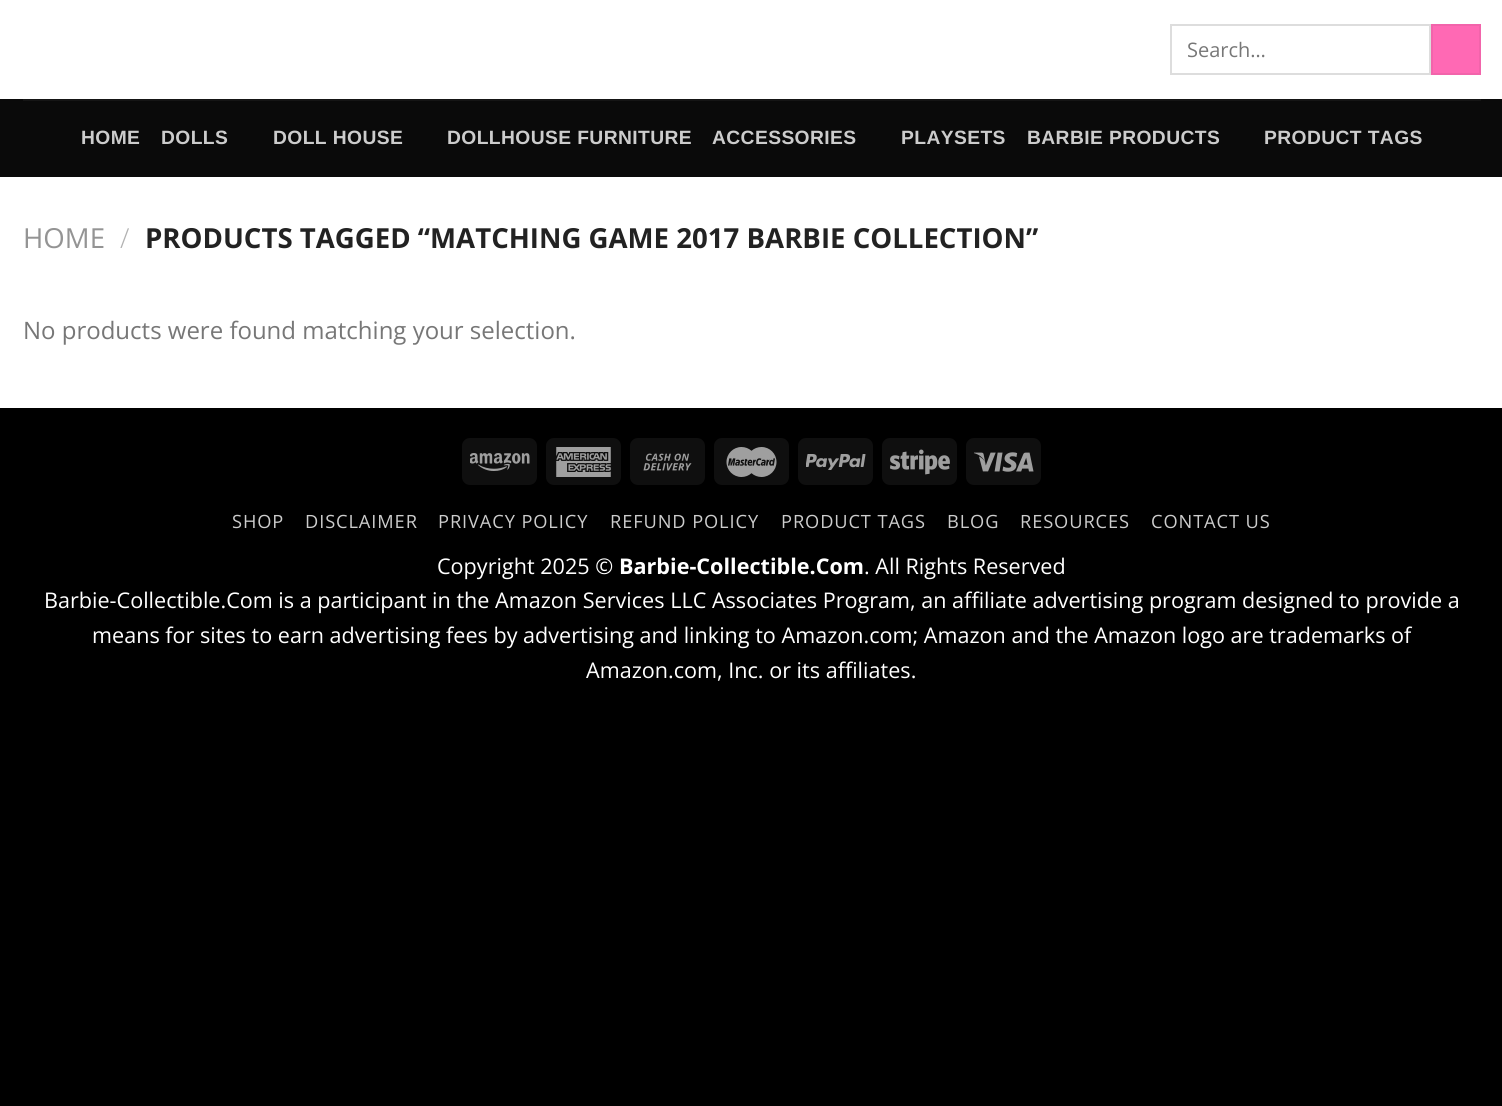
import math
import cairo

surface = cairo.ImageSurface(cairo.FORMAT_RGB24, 1502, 1106)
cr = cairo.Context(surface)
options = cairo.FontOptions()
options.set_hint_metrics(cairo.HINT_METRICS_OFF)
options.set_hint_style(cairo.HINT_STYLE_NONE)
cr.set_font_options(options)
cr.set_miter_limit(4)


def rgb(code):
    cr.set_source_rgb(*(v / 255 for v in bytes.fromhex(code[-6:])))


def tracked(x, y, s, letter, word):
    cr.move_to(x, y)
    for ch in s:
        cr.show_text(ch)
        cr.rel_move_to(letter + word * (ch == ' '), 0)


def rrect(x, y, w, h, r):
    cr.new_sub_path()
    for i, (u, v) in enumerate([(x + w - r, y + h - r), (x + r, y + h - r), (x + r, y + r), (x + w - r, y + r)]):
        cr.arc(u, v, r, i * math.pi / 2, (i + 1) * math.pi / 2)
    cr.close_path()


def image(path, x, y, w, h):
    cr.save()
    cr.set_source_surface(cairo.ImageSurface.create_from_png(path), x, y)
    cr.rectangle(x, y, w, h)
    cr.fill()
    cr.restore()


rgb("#000000")
cr.paint()
rgb("#ffffff")
cr.rectangle(0, 0, 1502, 408)
cr.fill()
cr.rectangle(1171, 25, 259, 49)
rgb("#dddddd")
cr.stroke()
rgb("#ff69b4")
cr.rectangle(1432, 25, 48, 49)
cr.fill_preserve()
rgb("#f264ab")
cr.stroke()
rgb("#0a0a0a")
cr.rectangle(0, 99, 1502, 78)
cr.fill()
rgb("#151515")
cr.rectangle(23, 99, 1458, 2)
cr.fill()
rgb("#0f0f0f")
rrect(462, 438, 75, 47, 8)
cr.fill()
image("img/1.png", 470, 453, 60, 18)
rrect(546, 438, 75, 47, 8)
cr.fill()
image("img/2.png", 556, 447, 55, 30)
rrect(630, 438, 75, 47, 8)
cr.fill()
image("img/3.png", 643, 453, 49, 18)
rrect(714, 438, 75, 47, 8)
cr.fill()
image("img/4.png", 726, 447, 51, 30)
rrect(798, 438, 75, 47, 8)
cr.fill()
image("img/5.png", 806, 454, 60, 16)
rrect(882, 438, 75, 47, 8)
cr.fill()
image("img/6.png", 890, 449, 60, 26)
rrect(966, 438, 75, 47, 8)
cr.fill()
image("img/7.png", 974, 452, 60, 20)
cr.select_font_face("Open Sans")
cr.set_font_size(20)
rgb("#777777")
cr.move_to(1187, 57)
cr.show_text("Search…")
cr.select_font_face("Liberation Sans", cairo.FONT_SLANT_NORMAL, cairo.FONT_WEIGHT_BOLD)
cr.set_font_size(19.25)
rgb("#cccccc")
for x, y, s in [
    (81, 144, "HOME"),
    (161, 144, "DOLLS"),
    (273, 144, "DOLL HOUSE"),
    (447, 144, "DOLLHOUSE FURNITURE"),
    (712, 144, "ACCESSORIES"),
    (901, 144, "PLAYSETS"),
    (1027, 144, "BARBIE PRODUCTS"),
    (1264, 144, "PRODUCT TAGS"),
]:
    tracked(x, y, s, 0.4, 0)
cr.select_font_face("Open Sans")
cr.set_font_size(27.6)
rgb("#949494")
cr.move_to(23, 248)
cr.show_text("HOME")
cr.select_font_face("Open Sans Light")
rgb("#b2b2b2")
cr.move_to(120, 248)
cr.show_text("/")
cr.select_font_face("Open Sans", cairo.FONT_SLANT_NORMAL, cairo.FONT_WEIGHT_BOLD)
rgb("#222222")
cr.move_to(145, 248)
cr.show_text("PRODUCTS TAGGED “MATCHING GAME 2017 BARBIE COLLECTION”")
cr.select_font_face("Open Sans")
cr.set_font_size(24)
rgb("#777777")
cr.move_to(23, 339)
cr.show_text("No products were found matching your selection.")
cr.set_font_size(18.25)
rgb("#cccccc")
for x, y, s in [
    (232, 528, "SHOP"),
    (305, 528, "DISCLAIMER"),
    (438, 528, "PRIVACY POLICY"),
    (610, 528, "REFUND POLICY"),
    (781, 528, "PRODUCT TAGS"),
    (947, 528, "BLOG"),
    (1020, 528, "RESOURCES"),
    (1151, 528, "CONTACT US"),
]:
    tracked(x, y, s, 0.9, 0)
cr.set_font_size(21.6)
rgb("#ffffff")
cr.move_to(437, 574)
cr.show_text("Copyright 2025 ©")
cr.select_font_face("Open Sans", cairo.FONT_SLANT_NORMAL, cairo.FONT_WEIGHT_BOLD)
cr.move_to(619, 574)
cr.show_text("Barbie-Collectible.Com")
cr.select_font_face("Open Sans")
for x, y, s in [
    (864, 574, ". All Rights Reserved"),
    (44, 608, "Barbie-Collectible.Com is a participant in the Amazon Services LLC Associates Program, an affiliate advertising program designed to provide a"),
    (92, 643, "means for sites to earn advertising fees by advertising and linking to Amazon.com; Amazon and the Amazon logo are trademarks of"),
    (586, 678, "Amazon.com, Inc. or its affiliates."),
]:
    cr.move_to(x, y)
    cr.show_text(s)
surface.write_to_png("page.png")
